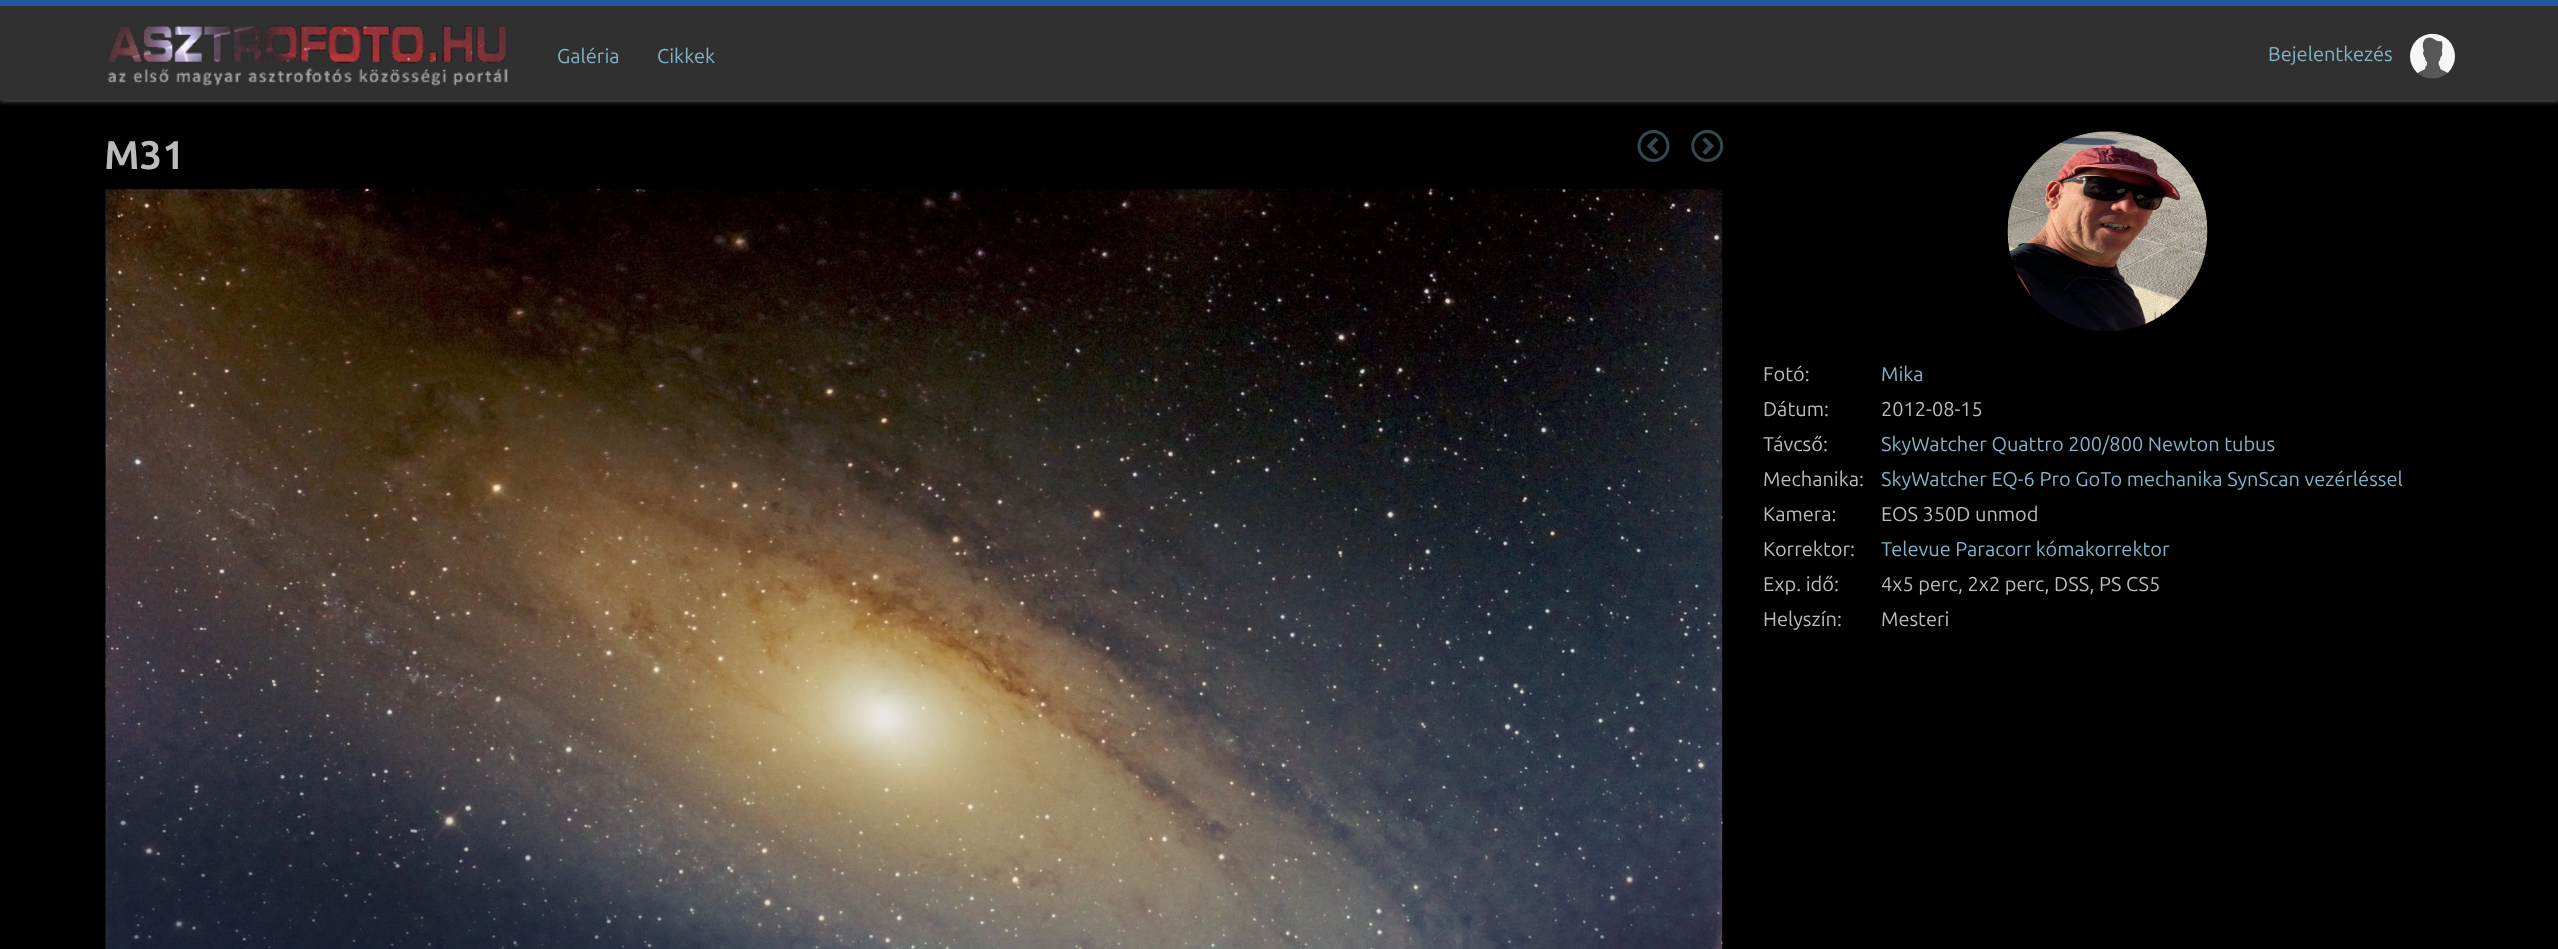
<!DOCTYPE html>
<meta charset="utf-8">
<style>body { margin: 0 } canvas { display: block }</style>
<canvas id="canvas" width="2558" height="949"></canvas>
<script type="module">
  const canvas = document.getElementById("canvas");
  const g = canvas.getContext("2d");
  g.miterLimit = 4;
  g.fontKerning = "normal";
  function drawText(s, x, y, [font, color]) {
    g.font = font;
    g.fillStyle = color;
    g.fillText(s, x, y);
  }
  function fillBox(x, y, w, h, color) {
    g.fillStyle = color;
    g.fillRect(x, y, w, h);
  }
  async function drawPicture(src, x, y, w, h) {
    const img = new Image();
    img.src = src;
    await img.decode();
    g.drawImage(img, x, y, w, h);
  }

  const s1 = ["20px Ubuntu", "#80B3C7"];
  const s2 = ["bold 40px Ubuntu", "#BBBBBB"];
  const s3 = ["20px Ubuntu", "#BBBBBB"];

  fillBox(0, 0, 2558, 949, "#000000");
  g.fillStyle = "#888888";
  g.filter = "blur(3px)";
  g.beginPath();
  g.rect(0, 0, 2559, 100);
  g.fill();
  g.filter = "none";
  fillBox(0, 6, 2558, 94, "#303030");
  fillBox(0, 0, 2558, 6, "#24569F");
  await drawPicture("pic1.png", 107, 25, 401, 62);
  drawText("Galéria", 557, 63, s1);
  drawText("Cikkek", 657, 63, s1);
  drawText("Bejelentkezés", 2268, 61, s1);
  await drawPicture("pic2.png", 2410, 33, 45, 46);
  drawText("M31", 104, 169, s2);
  await drawPicture("pic3.png", 1637, 130, 33, 32);
  await drawPicture("pic4.png", 1691, 130, 33, 32);
  await drawPicture("pic5.png", 105, 188, 1618, 761);
  await drawPicture("pic6.png", 2007, 131, 201, 200);
  drawText("Fotó:", 1763, 381, s3);
  drawText("Mika", 1881, 381, s1);
  drawText("Dátum:", 1763, 416, s3);
  drawText("2012-08-15", 1881, 416, s3);
  drawText("Távcső:", 1763, 451, s3);
  drawText("SkyWatcher Quattro 200/800 Newton tubus", 1881, 451, s1);
  drawText("Mechanika:", 1763, 486, s3);
  drawText("SkyWatcher EQ-6 Pro GoTo mechanika SynScan vezérléssel", 1881, 486, s1);
  drawText("Kamera:", 1763, 521, s3);
  drawText("EOS 350D unmod", 1881, 521, s3);
  drawText("Korrektor:", 1763, 556, s3);
  drawText("Televue Paracorr kómakorrektor", 1881, 556, s1);
  drawText("Exp. idő:", 1763, 591, s3);
  drawText("4x5 perc, 2x2 perc, DSS, PS CS5", 1881, 591, s3);
  drawText("Helyszín:", 1763, 626, s3);
  drawText("Mesteri", 1881, 626, s3);
</script>
